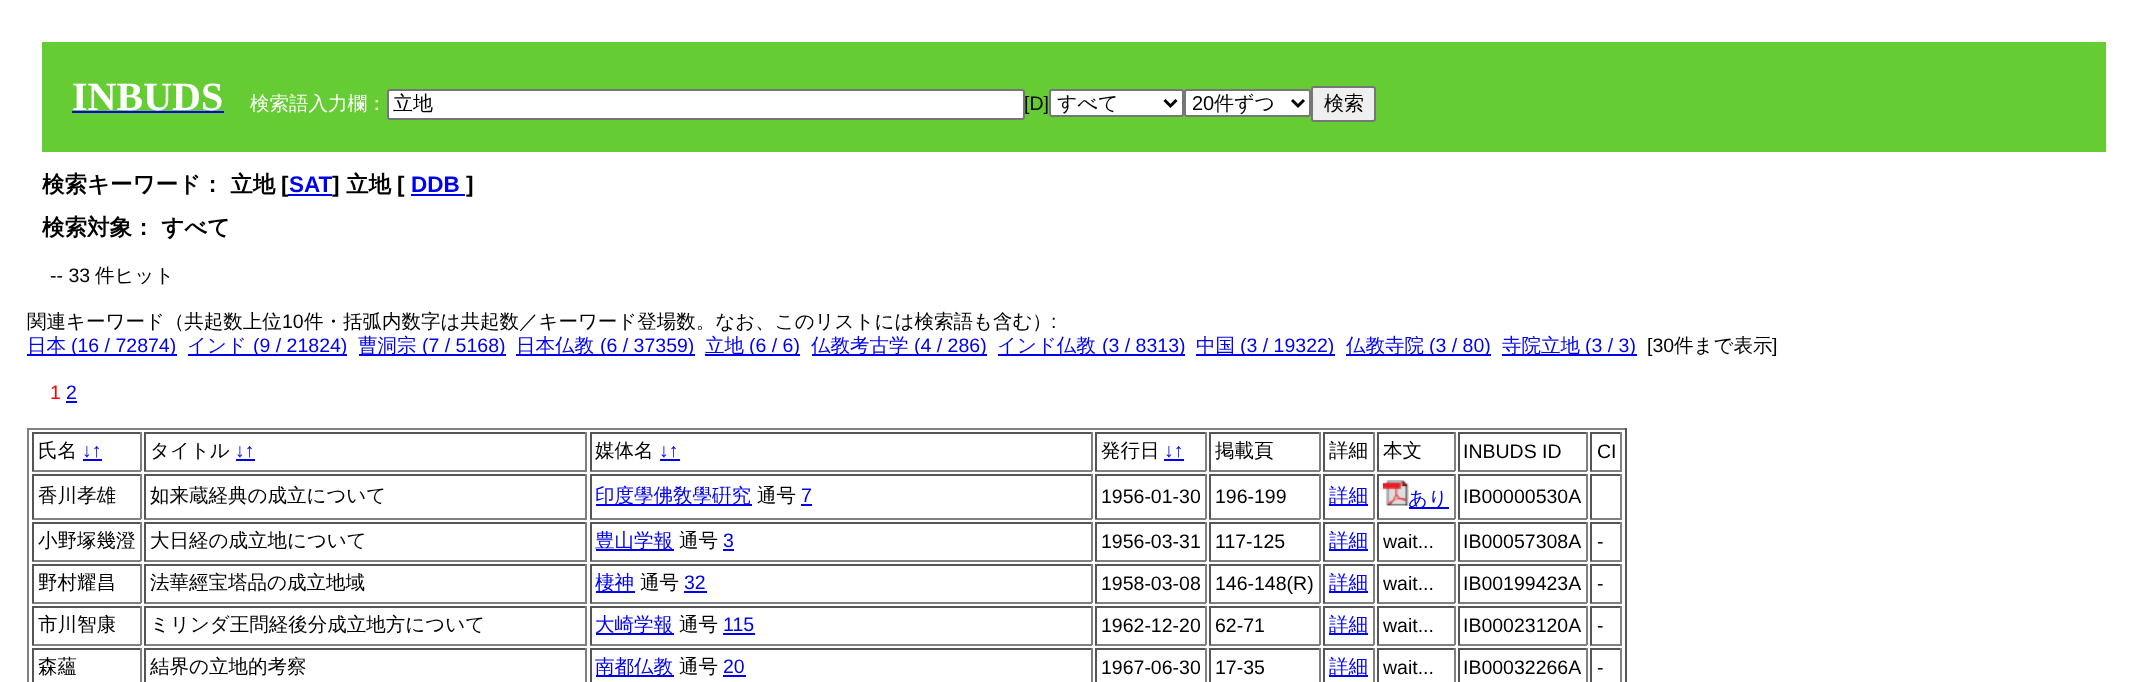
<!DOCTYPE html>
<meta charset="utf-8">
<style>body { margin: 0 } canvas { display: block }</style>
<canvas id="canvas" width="2147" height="682"></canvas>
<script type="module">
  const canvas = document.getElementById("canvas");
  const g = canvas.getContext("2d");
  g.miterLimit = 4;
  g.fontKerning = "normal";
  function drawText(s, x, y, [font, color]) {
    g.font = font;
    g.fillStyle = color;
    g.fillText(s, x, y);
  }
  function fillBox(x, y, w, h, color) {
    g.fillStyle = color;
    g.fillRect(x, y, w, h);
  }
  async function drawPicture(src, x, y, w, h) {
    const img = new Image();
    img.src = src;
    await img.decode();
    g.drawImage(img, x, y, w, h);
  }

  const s1 = ["bold 40px Liberation Serif", "#FFFFFF"];
  const s2 = ["500 19.5px WenQuanYi Zen Hei", "#FFFFFF"];
  const s3 = ["500 20px WenQuanYi Zen Hei", "#000000"];
  const s4 = ["19.5px Liberation Sans", "#000000"];
  const s5 = ["20px Liberation Sans", "#000000"];
  const s6 = ["bold 22.5px WenQuanYi Zen Hei", "#000000"];
  const s7 = ["bold 22.5px Liberation Sans", "#000000"];
  const s8 = ["bold 22.5px Liberation Sans", "#0000EE"];
  const s9 = ["500 19.5px WenQuanYi Zen Hei", "#000000"];
  const s10 = ["500 19.5px WenQuanYi Zen Hei", "#0000EE"];
  const s11 = ["19.5px Liberation Sans", "#0000EE"];
  const s12 = ["19.5px Liberation Sans", "#FF0000"];

  fillBox(0, 0, 2147, 682, "#FFFFFF");
  fillBox(42, 42, 2064, 110, "#66CC33");
  drawText("INBUDS", 72, 110, s1);
  fillBox(72, 111, 152, 2, "#0000EE");
  drawText("検索語入力欄：", 250, 110, s2);
  g.beginPath();
  g.roundRect(388, 90, 636, 29, 2);
  g.fill();
  g.strokeStyle = "#767676";
  g.lineWidth = 2;
  g.stroke();
  drawText("立地", 393, 110, s3);
  drawText("[D]", 1024, 110, s4);
  g.fillStyle = "#FFFFFF";
  g.beginPath();
  g.roundRect(1050, 90, 133, 26, 2);
  g.fill();
  g.stroke();
  g.beginPath();
  g.moveTo(1164.5, 100);
  g.lineTo(1170.5, 106);
  g.lineTo(1176.5, 100);
  g.strokeStyle = "#000000";
  g.lineWidth = 3;
  g.stroke();
  drawText("すべて", 1057, 110, s3);
  g.fillStyle = "#FFFFFF";
  g.beginPath();
  g.roundRect(1185, 90, 125, 26, 2);
  g.fill();
  g.strokeStyle = "#767676";
  g.lineWidth = 2;
  g.stroke();
  g.beginPath();
  g.moveTo(1292, 100);
  g.lineTo(1298, 106);
  g.lineTo(1304, 100);
  g.strokeStyle = "#000000";
  g.lineWidth = 3;
  g.stroke();
  drawText("20", 1192, 110, s5);
  drawText("件ずつ", 1214, 110, s3);
  g.fillStyle = "#EFEFEF";
  g.beginPath();
  g.roundRect(1312, 87, 63, 34, 2);
  g.fill();
  g.strokeStyle = "#767676";
  g.lineWidth = 2;
  g.stroke();
  drawText("検索", 1324, 110, s3);
  drawText("検索キーワード： 立地", 42, 192, s6);
  drawText("[", 281, 192, s7);
  drawText("SAT", 289, 192, s8);
  fillBox(288, 194, 44, 2, "#0000EE");
  drawText("]", 332, 192, s7);
  drawText("立地", 346, 192, s6);
  drawText("[", 397, 192, s7);
  drawText("DDB", 411, 192, s8);
  fillBox(411, 194, 54, 2, "#0000EE");
  drawText("]", 466, 192, s7);
  drawText("検索対象： すべて", 42, 235, s6);
  drawText("-- 33", 50, 282, s4);
  drawText("件ヒット", 95, 282, s9);
  drawText("関連キーワード（共起数上位", 27, 328, s9);
  drawText("10", 282, 328, s4);
  drawText("件・括弧内数字は共起数／キーワード登場数。なお、このリストには検索語も含む）", 304, 328, s9);
  drawText(":", 1051, 328, s4);
  fillBox(27, 354, 150, 2, "#0000EE");
  drawText("日本", 27, 352, s10);
  drawText("(16 / 72874)", 71, 352, s11);
  fillBox(188, 354, 159, 2, "#0000EE");
  drawText("インド", 187, 352, s10);
  drawText("(9 / 21824)", 253, 352, s11);
  fillBox(359, 354, 147, 2, "#0000EE");
  drawText("曹洞宗", 358, 352, s10);
  drawText("(7 / 5168)", 422, 352, s11);
  fillBox(516, 354, 179, 2, "#0000EE");
  drawText("日本仏教", 516, 352, s10);
  drawText("(6 / 37359)", 600, 352, s11);
  fillBox(705, 354, 95, 2, "#0000EE");
  drawText("立地", 705, 352, s10);
  drawText("(6 / 6)", 749, 352, s11);
  fillBox(812, 354, 175, 2, "#0000EE");
  drawText("仏教考古学", 811, 352, s10);
  drawText("(4 / 286)", 914, 352, s11);
  fillBox(998, 354, 187, 2, "#0000EE");
  drawText("インド仏教", 997, 352, s10);
  drawText("(3 / 8313)", 1102, 352, s11);
  fillBox(1196, 354, 139, 2, "#0000EE");
  drawText("中国", 1196, 352, s10);
  drawText("(3 / 19322)", 1240, 352, s11);
  fillBox(1346, 354, 145, 2, "#0000EE");
  drawText("仏教寺院", 1346, 352, s10);
  drawText("(3 / 80)", 1429, 352, s11);
  fillBox(1502, 354, 135, 2, "#0000EE");
  drawText("寺院立地", 1502, 352, s10);
  drawText("(3 / 3)", 1585, 352, s11);
  drawText("[30", 1647, 352, s4);
  drawText("件まで表示", 1674, 352, s9);
  drawText("]", 1772, 352, s4);
  drawText("1", 50, 399, s12);
  drawText("2", 66, 399, s11);
  fillBox(66, 401, 11, 2, "#0000EE");
  fillBox(27, 428, 1599, 2, "#808080");
  fillBox(1625, 428, 2, 254, "#555555");
  fillBox(27, 428, 2, 254, "#808080");
  fillBox(32, 432, 109, 2, "#555555");
  fillBox(140, 432, 2, 39, "#808080");
  fillBox(32, 470, 109, 2, "#808080");
  fillBox(32, 432, 2, 39, "#555555");
  drawText("氏名", 38, 457, s9);
  drawText("↓↑", 82, 457, s11);
  fillBox(83, 459, 19, 2, "#0000EE");
  fillBox(144, 432, 443, 2, "#555555");
  fillBox(585, 432, 2, 39, "#808080");
  fillBox(144, 470, 443, 2, "#808080");
  fillBox(144, 432, 2, 39, "#555555");
  drawText("タイトル", 150, 457, s9);
  drawText("↓↑", 235, 457, s11);
  fillBox(236, 459, 19, 2, "#0000EE");
  fillBox(590, 432, 502, 2, "#555555");
  fillBox(1091, 432, 2, 39, "#808080");
  fillBox(590, 470, 502, 2, "#808080");
  fillBox(590, 432, 2, 39, "#555555");
  drawText("媒体名", 595, 457, s9);
  drawText("↓↑", 659, 457, s11);
  fillBox(660, 459, 20, 2, "#0000EE");
  fillBox(1095, 432, 111, 2, "#555555");
  fillBox(1205, 432, 2, 39, "#808080");
  fillBox(1095, 470, 111, 2, "#808080");
  fillBox(1095, 432, 2, 39, "#555555");
  drawText("発行日", 1101, 457, s9);
  drawText("↓↑", 1164, 457, s11);
  fillBox(1164, 459, 20, 2, "#0000EE");
  fillBox(1209, 432, 111, 2, "#555555");
  fillBox(1319, 432, 2, 39, "#808080");
  fillBox(1209, 470, 111, 2, "#808080");
  fillBox(1209, 432, 2, 39, "#555555");
  drawText("掲載頁", 1215, 457, s9);
  fillBox(1323, 432, 51, 2, "#555555");
  fillBox(1373, 432, 2, 39, "#808080");
  fillBox(1323, 470, 51, 2, "#808080");
  fillBox(1323, 432, 2, 39, "#555555");
  drawText("詳細", 1329, 457, s9);
  fillBox(1377, 432, 78, 2, "#555555");
  fillBox(1454, 432, 2, 39, "#808080");
  fillBox(1377, 470, 78, 2, "#808080");
  fillBox(1377, 432, 2, 39, "#555555");
  drawText("本文", 1383, 457, s9);
  fillBox(1458, 432, 129, 2, "#555555");
  fillBox(1586, 432, 2, 39, "#808080");
  fillBox(1458, 470, 129, 2, "#808080");
  fillBox(1458, 432, 2, 39, "#555555");
  drawText("INBUDS ID", 1463, 458, s4);
  fillBox(1590, 432, 32, 2, "#555555");
  fillBox(1620, 432, 2, 39, "#808080");
  fillBox(1590, 470, 32, 2, "#808080");
  fillBox(1590, 432, 2, 39, "#555555");
  drawText("CI", 1597, 458, s4);
  fillBox(32, 474, 109, 2, "#555555");
  fillBox(140, 474, 2, 45, "#808080");
  fillBox(32, 518, 109, 2, "#808080");
  fillBox(32, 474, 2, 45, "#555555");
  drawText("香川孝雄", 38, 502, s9);
  fillBox(144, 474, 443, 2, "#555555");
  fillBox(585, 474, 2, 45, "#808080");
  fillBox(144, 518, 443, 2, "#808080");
  fillBox(144, 474, 2, 45, "#555555");
  drawText("如来蔵経典の成立について", 150, 502, s9);
  fillBox(590, 474, 502, 2, "#555555");
  fillBox(1091, 474, 2, 45, "#808080");
  fillBox(590, 518, 502, 2, "#808080");
  fillBox(590, 474, 2, 45, "#555555");
  fillBox(596, 504, 156, 2, "#0000EE");
  drawText("印度學佛敎學硏究", 595, 502, s10);
  drawText("通号", 757, 502, s9);
  drawText("7", 801, 502, s11);
  fillBox(801, 504, 11, 2, "#0000EE");
  fillBox(1095, 474, 111, 2, "#555555");
  fillBox(1205, 474, 2, 45, "#808080");
  fillBox(1095, 518, 111, 2, "#808080");
  fillBox(1095, 474, 2, 45, "#555555");
  drawText("1956-01-30", 1101, 503, s4);
  fillBox(1209, 474, 111, 2, "#555555");
  fillBox(1319, 474, 2, 45, "#808080");
  fillBox(1209, 518, 111, 2, "#808080");
  fillBox(1209, 474, 2, 45, "#555555");
  drawText("196-199", 1215, 503, s4);
  fillBox(1323, 474, 51, 2, "#555555");
  fillBox(1373, 474, 2, 45, "#808080");
  fillBox(1323, 518, 51, 2, "#808080");
  fillBox(1323, 474, 2, 45, "#555555");
  fillBox(1329, 504, 39, 2, "#0000EE");
  drawText("詳細", 1329, 502, s10);
  fillBox(1377, 474, 78, 2, "#555555");
  fillBox(1454, 474, 2, 45, "#808080");
  fillBox(1377, 518, 78, 2, "#808080");
  fillBox(1377, 474, 2, 45, "#555555");
  await drawPicture("pic1.png", 1383, 480, 26, 26);
  fillBox(1409, 507, 40, 2, "#0000EE");
  drawText("あり", 1408, 505, s10);
  fillBox(1458, 474, 129, 2, "#555555");
  fillBox(1586, 474, 2, 45, "#808080");
  fillBox(1458, 518, 129, 2, "#808080");
  fillBox(1458, 474, 2, 45, "#555555");
  drawText("IB00000530A", 1463, 503, s4);
  fillBox(1590, 474, 32, 2, "#555555");
  fillBox(1620, 474, 2, 45, "#808080");
  fillBox(1590, 518, 32, 2, "#808080");
  fillBox(1590, 474, 2, 45, "#555555");
  fillBox(32, 522, 109, 2, "#555555");
  fillBox(140, 522, 2, 39, "#808080");
  fillBox(32, 560, 109, 2, "#808080");
  fillBox(32, 522, 2, 39, "#555555");
  drawText("小野塚幾澄", 38, 547, s9);
  fillBox(144, 522, 443, 2, "#555555");
  fillBox(585, 522, 2, 39, "#808080");
  fillBox(144, 560, 443, 2, "#808080");
  fillBox(144, 522, 2, 39, "#555555");
  drawText("大日経の成立地について", 150, 547, s9);
  fillBox(590, 522, 502, 2, "#555555");
  fillBox(1091, 522, 2, 39, "#808080");
  fillBox(590, 560, 502, 2, "#808080");
  fillBox(590, 522, 2, 39, "#555555");
  fillBox(596, 549, 78, 2, "#0000EE");
  drawText("豊山学報", 595, 547, s10);
  drawText("通号", 679, 547, s9);
  drawText("3", 723, 547, s11);
  fillBox(723, 549, 11, 2, "#0000EE");
  fillBox(1095, 522, 111, 2, "#555555");
  fillBox(1205, 522, 2, 39, "#808080");
  fillBox(1095, 560, 111, 2, "#808080");
  fillBox(1095, 522, 2, 39, "#555555");
  drawText("1956-03-31", 1101, 548, s4);
  fillBox(1209, 522, 111, 2, "#555555");
  fillBox(1319, 522, 2, 39, "#808080");
  fillBox(1209, 560, 111, 2, "#808080");
  fillBox(1209, 522, 2, 39, "#555555");
  drawText("117-125", 1215, 548, s4);
  fillBox(1323, 522, 51, 2, "#555555");
  fillBox(1373, 522, 2, 39, "#808080");
  fillBox(1323, 560, 51, 2, "#808080");
  fillBox(1323, 522, 2, 39, "#555555");
  fillBox(1329, 549, 39, 2, "#0000EE");
  drawText("詳細", 1329, 547, s10);
  fillBox(1377, 522, 78, 2, "#555555");
  fillBox(1454, 522, 2, 39, "#808080");
  fillBox(1377, 560, 78, 2, "#808080");
  fillBox(1377, 522, 2, 39, "#555555");
  drawText("wait...", 1383, 548, s4);
  fillBox(1458, 522, 129, 2, "#555555");
  fillBox(1586, 522, 2, 39, "#808080");
  fillBox(1458, 560, 129, 2, "#808080");
  fillBox(1458, 522, 2, 39, "#555555");
  drawText("IB00057308A", 1463, 548, s4);
  fillBox(1590, 522, 32, 2, "#555555");
  fillBox(1620, 522, 2, 39, "#808080");
  fillBox(1590, 560, 32, 2, "#808080");
  fillBox(1590, 522, 2, 39, "#555555");
  drawText("-", 1597, 548, s4);
  fillBox(32, 564, 109, 2, "#555555");
  fillBox(140, 564, 2, 39, "#808080");
  fillBox(32, 602, 109, 2, "#808080");
  fillBox(32, 564, 2, 39, "#555555");
  drawText("野村耀昌", 38, 589, s9);
  fillBox(144, 564, 443, 2, "#555555");
  fillBox(585, 564, 2, 39, "#808080");
  fillBox(144, 602, 443, 2, "#808080");
  fillBox(144, 564, 2, 39, "#555555");
  drawText("法華經宝塔品の成立地域", 150, 589, s9);
  fillBox(590, 564, 502, 2, "#555555");
  fillBox(1091, 564, 2, 39, "#808080");
  fillBox(590, 602, 502, 2, "#808080");
  fillBox(590, 564, 2, 39, "#555555");
  fillBox(596, 591, 39, 2, "#0000EE");
  drawText("棲神", 595, 589, s10);
  drawText("通号", 640, 589, s9);
  drawText("32", 684, 589, s11);
  fillBox(684, 591, 23, 2, "#0000EE");
  fillBox(1095, 564, 111, 2, "#555555");
  fillBox(1205, 564, 2, 39, "#808080");
  fillBox(1095, 602, 111, 2, "#808080");
  fillBox(1095, 564, 2, 39, "#555555");
  drawText("1958-03-08", 1101, 590, s4);
  fillBox(1209, 564, 111, 2, "#555555");
  fillBox(1319, 564, 2, 39, "#808080");
  fillBox(1209, 602, 111, 2, "#808080");
  fillBox(1209, 564, 2, 39, "#555555");
  drawText("146-148(R)", 1215, 590, s4);
  fillBox(1323, 564, 51, 2, "#555555");
  fillBox(1373, 564, 2, 39, "#808080");
  fillBox(1323, 602, 51, 2, "#808080");
  fillBox(1323, 564, 2, 39, "#555555");
  fillBox(1329, 591, 39, 2, "#0000EE");
  drawText("詳細", 1329, 589, s10);
  fillBox(1377, 564, 78, 2, "#555555");
  fillBox(1454, 564, 2, 39, "#808080");
  fillBox(1377, 602, 78, 2, "#808080");
  fillBox(1377, 564, 2, 39, "#555555");
  drawText("wait...", 1383, 590, s4);
  fillBox(1458, 564, 129, 2, "#555555");
  fillBox(1586, 564, 2, 39, "#808080");
  fillBox(1458, 602, 129, 2, "#808080");
  fillBox(1458, 564, 2, 39, "#555555");
  drawText("IB00199423A", 1463, 590, s4);
  fillBox(1590, 564, 32, 2, "#555555");
  fillBox(1620, 564, 2, 39, "#808080");
  fillBox(1590, 602, 32, 2, "#808080");
  fillBox(1590, 564, 2, 39, "#555555");
  drawText("-", 1597, 590, s4);
  fillBox(32, 606, 109, 2, "#555555");
  fillBox(140, 606, 2, 39, "#808080");
  fillBox(32, 644, 109, 2, "#808080");
  fillBox(32, 606, 2, 39, "#555555");
  drawText("市川智康", 38, 631, s9);
  fillBox(144, 606, 443, 2, "#555555");
  fillBox(585, 606, 2, 39, "#808080");
  fillBox(144, 644, 443, 2, "#808080");
  fillBox(144, 606, 2, 39, "#555555");
  drawText("ミリンダ王問経後分成立地方について", 150, 631, s9);
  fillBox(590, 606, 502, 2, "#555555");
  fillBox(1091, 606, 2, 39, "#808080");
  fillBox(590, 644, 502, 2, "#808080");
  fillBox(590, 606, 2, 39, "#555555");
  fillBox(596, 633, 78, 2, "#0000EE");
  drawText("大崎学報", 595, 631, s10);
  drawText("通号", 679, 631, s9);
  drawText("115", 723, 631, s11);
  fillBox(723, 633, 32, 2, "#0000EE");
  fillBox(1095, 606, 111, 2, "#555555");
  fillBox(1205, 606, 2, 39, "#808080");
  fillBox(1095, 644, 111, 2, "#808080");
  fillBox(1095, 606, 2, 39, "#555555");
  drawText("1962-12-20", 1101, 632, s4);
  fillBox(1209, 606, 111, 2, "#555555");
  fillBox(1319, 606, 2, 39, "#808080");
  fillBox(1209, 644, 111, 2, "#808080");
  fillBox(1209, 606, 2, 39, "#555555");
  drawText("62-71", 1215, 632, s4);
  fillBox(1323, 606, 51, 2, "#555555");
  fillBox(1373, 606, 2, 39, "#808080");
  fillBox(1323, 644, 51, 2, "#808080");
  fillBox(1323, 606, 2, 39, "#555555");
  fillBox(1329, 633, 39, 2, "#0000EE");
  drawText("詳細", 1329, 631, s10);
  fillBox(1377, 606, 78, 2, "#555555");
  fillBox(1454, 606, 2, 39, "#808080");
  fillBox(1377, 644, 78, 2, "#808080");
  fillBox(1377, 606, 2, 39, "#555555");
  drawText("wait...", 1383, 632, s4);
  fillBox(1458, 606, 129, 2, "#555555");
  fillBox(1586, 606, 2, 39, "#808080");
  fillBox(1458, 644, 129, 2, "#808080");
  fillBox(1458, 606, 2, 39, "#555555");
  drawText("IB00023120A", 1463, 632, s4);
  fillBox(1590, 606, 32, 2, "#555555");
  fillBox(1620, 606, 2, 39, "#808080");
  fillBox(1590, 644, 32, 2, "#808080");
  fillBox(1590, 606, 2, 39, "#555555");
  drawText("-", 1597, 632, s4);
  fillBox(32, 648, 109, 2, "#555555");
  fillBox(140, 648, 2, 34, "#808080");
  fillBox(32, 648, 2, 34, "#555555");
  drawText("森蘊", 38, 673, s9);
  fillBox(144, 648, 443, 2, "#555555");
  fillBox(585, 648, 2, 34, "#808080");
  fillBox(144, 648, 2, 34, "#555555");
  drawText("結界の立地的考察", 150, 673, s9);
  fillBox(590, 648, 502, 2, "#555555");
  fillBox(1091, 648, 2, 34, "#808080");
  fillBox(590, 648, 2, 34, "#555555");
  fillBox(596, 675, 78, 2, "#0000EE");
  drawText("南都仏教", 595, 673, s10);
  drawText("通号", 679, 673, s9);
  drawText("20", 723, 673, s11);
  fillBox(723, 675, 23, 2, "#0000EE");
  fillBox(1095, 648, 111, 2, "#555555");
  fillBox(1205, 648, 2, 34, "#808080");
  fillBox(1095, 648, 2, 34, "#555555");
  drawText("1967-06-30", 1101, 674, s4);
  fillBox(1209, 648, 111, 2, "#555555");
  fillBox(1319, 648, 2, 34, "#808080");
  fillBox(1209, 648, 2, 34, "#555555");
  drawText("17-35", 1215, 674, s4);
  fillBox(1323, 648, 51, 2, "#555555");
  fillBox(1373, 648, 2, 34, "#808080");
  fillBox(1323, 648, 2, 34, "#555555");
  fillBox(1329, 675, 39, 2, "#0000EE");
  drawText("詳細", 1329, 673, s10);
  fillBox(1377, 648, 78, 2, "#555555");
  fillBox(1454, 648, 2, 34, "#808080");
  fillBox(1377, 648, 2, 34, "#555555");
  drawText("wait...", 1383, 674, s4);
  fillBox(1458, 648, 129, 2, "#555555");
  fillBox(1586, 648, 2, 34, "#808080");
  fillBox(1458, 648, 2, 34, "#555555");
  drawText("IB00032266A", 1463, 674, s4);
  fillBox(1590, 648, 32, 2, "#555555");
  fillBox(1620, 648, 2, 34, "#808080");
  fillBox(1590, 648, 2, 34, "#555555");
  drawText("-", 1597, 674, s4);
</script>
